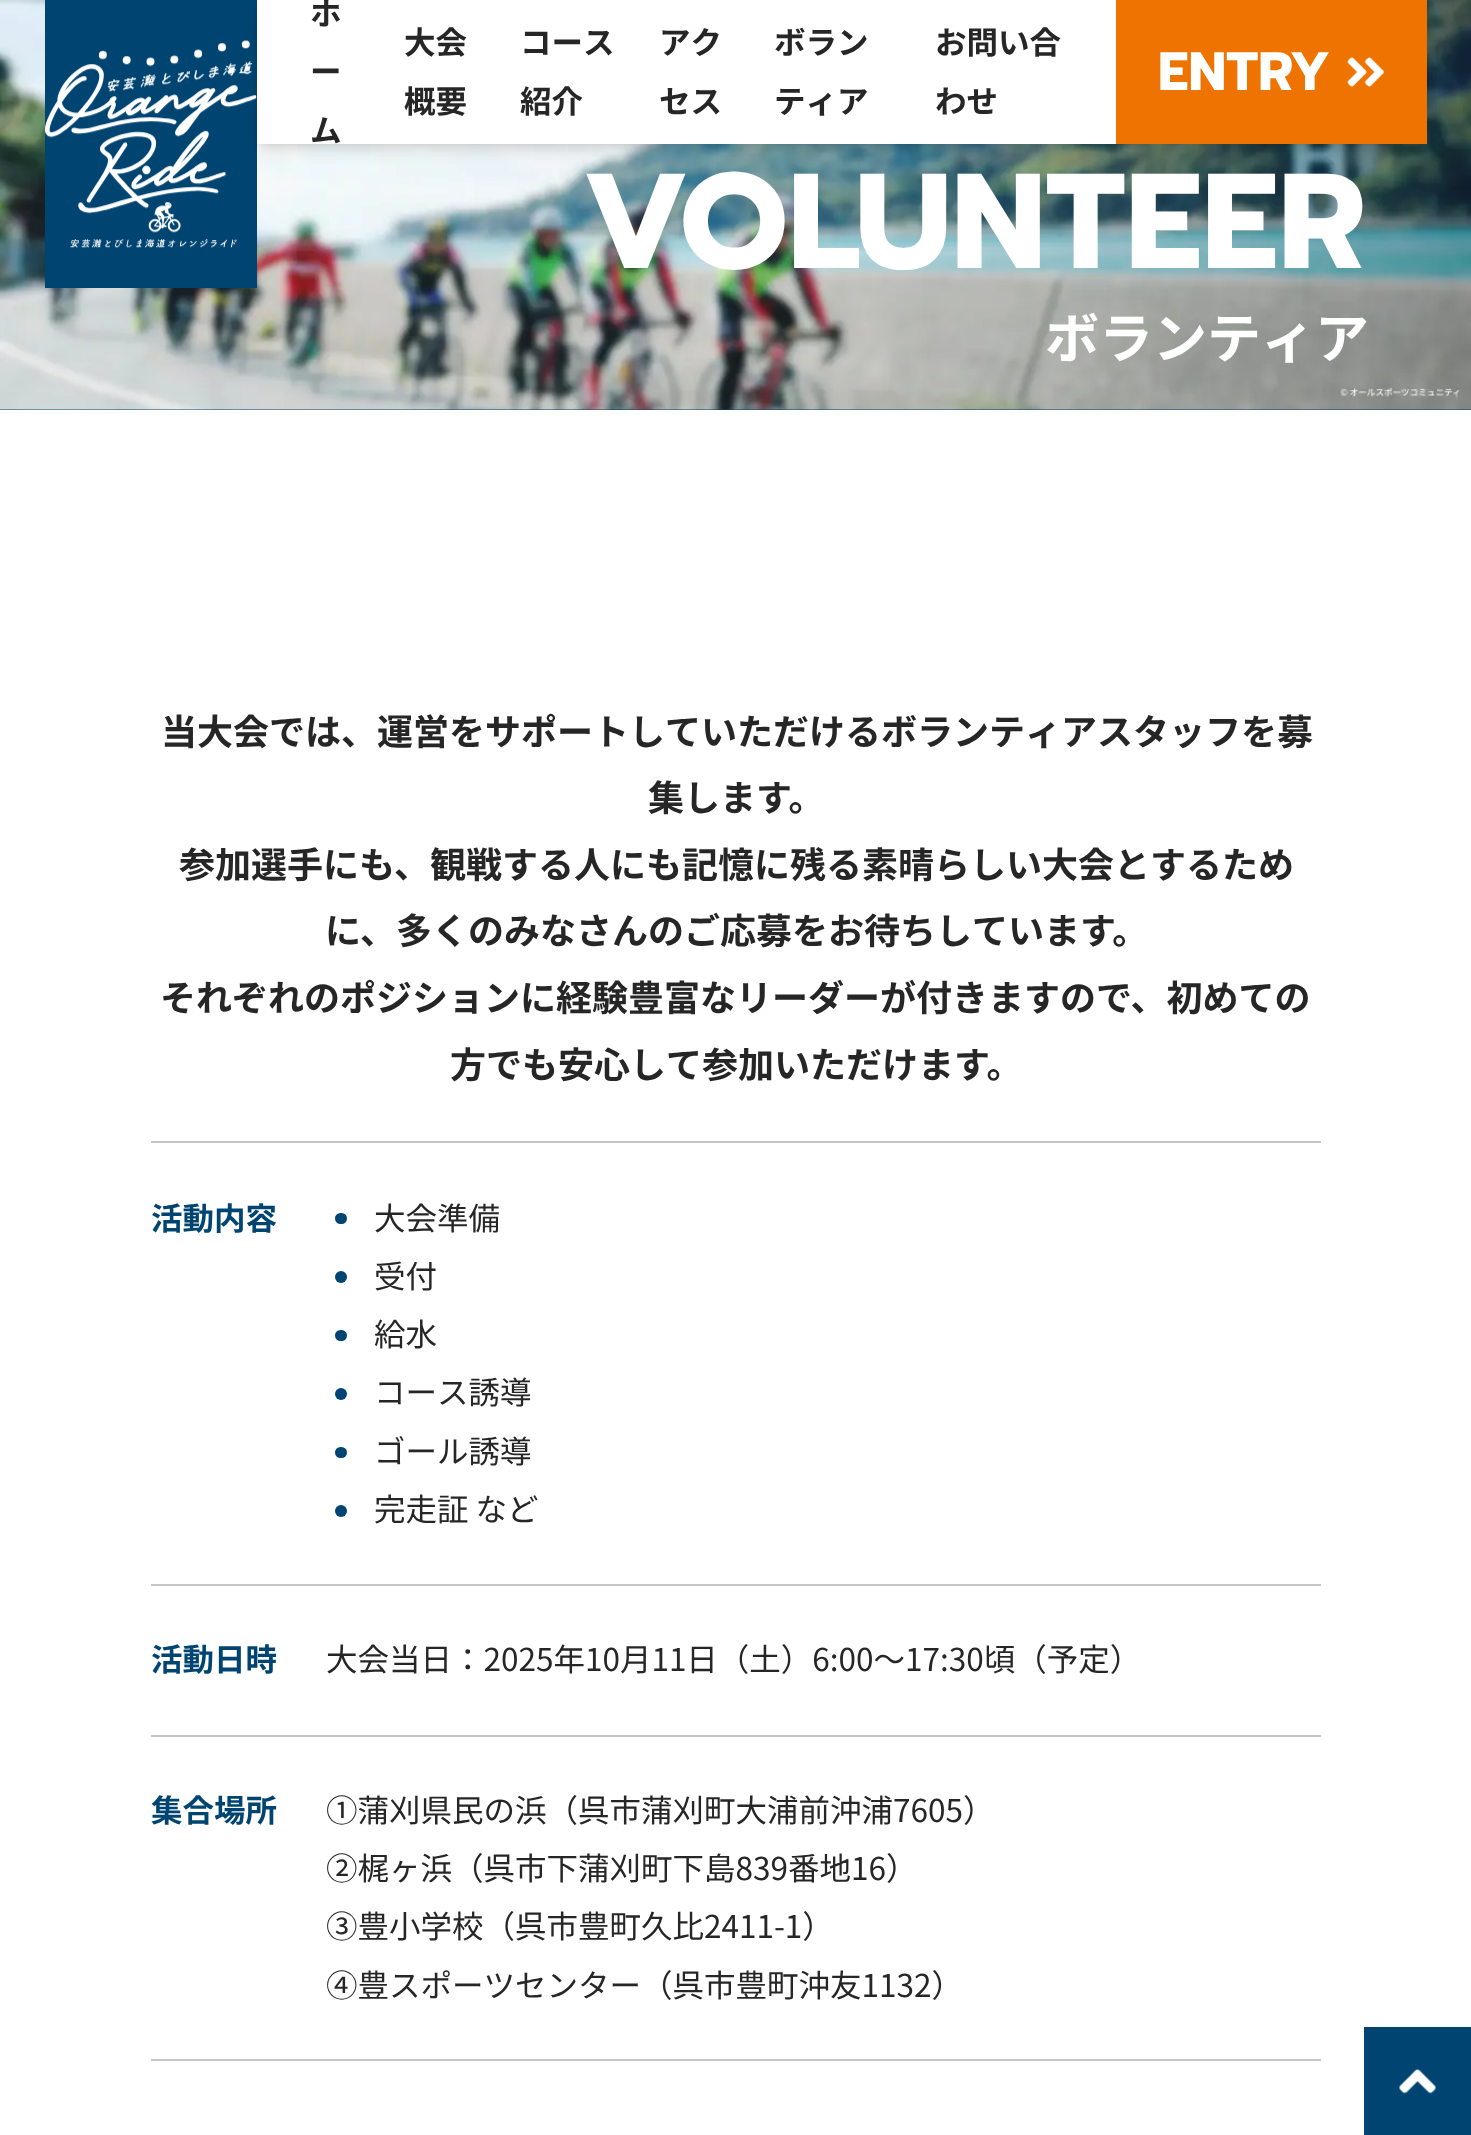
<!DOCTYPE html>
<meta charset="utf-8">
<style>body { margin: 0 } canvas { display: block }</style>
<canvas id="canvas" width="1471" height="2135"></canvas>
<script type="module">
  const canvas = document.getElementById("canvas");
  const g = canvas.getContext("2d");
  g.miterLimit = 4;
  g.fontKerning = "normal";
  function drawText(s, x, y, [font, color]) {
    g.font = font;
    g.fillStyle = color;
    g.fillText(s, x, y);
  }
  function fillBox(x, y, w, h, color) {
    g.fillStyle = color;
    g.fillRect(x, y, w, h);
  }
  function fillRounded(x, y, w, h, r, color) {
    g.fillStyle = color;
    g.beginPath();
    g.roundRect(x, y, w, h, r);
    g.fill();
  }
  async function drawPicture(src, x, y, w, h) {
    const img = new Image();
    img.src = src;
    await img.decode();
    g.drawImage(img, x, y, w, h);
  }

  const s1 = ["bold 31.5px Noto Sans JP", "#262626"];
  const s2 = ["bold 54px Prompt", "#FFFFFF"];
  const s3 = ["bold 135px Prompt", "#FFFFFF"];
  const s4 = ["bold 54px Noto Sans JP", "#FFFFFF"];
  const s5 = ["bold 36px Noto Sans JP", "#262626"];
  const s6 = ["bold 31.5px Noto Sans JP", "#004572"];
  const s7 = ["31.5px Noto Sans JP", "#262626"];

  fillBox(0, 0, 1471, 2135, "#FFFFFF");
  fillBox(0, 409, 1471, 1, "#004572");
  await drawPicture("pic3.png", 0, 0, 1471, 410);
  fillBox(45, 0, 212, 288, "#004572");
  await drawPicture("pic1.png", 45, 40, 212, 208);
  g.fillStyle = "rgba(0, 0, 0, 0.1)";
  g.filter = "blur(4.5px)";
  g.beginPath();
  g.rect(261, 9, 1161, 135);
  g.fill();
  g.filter = "none";
  g.filter = "blur(7px)";
  g.beginPath();
  g.rect(259, 11, 1165, 140);
  g.fill();
  g.filter = "none";
  fillBox(257, 0, 859, 144, "#FFFFFF");
  drawText("ホ", 310, 25, s1);
  drawText("ー", 310, 83, s1);
  drawText("ム", 310, 142, s1);
  drawText("大会", 404, 54, s1);
  drawText("概要", 404, 113, s1);
  drawText("コース", 520, 54, s1);
  drawText("紹介", 520, 113, s1);
  drawText("アク", 659, 54, s1);
  drawText("セス", 659, 113, s1);
  drawText("ボラン", 774, 54, s1);
  drawText("ティア", 774, 113, s1);
  drawText("お問い合", 935, 54, s1);
  drawText("わせ", 935, 113, s1);
  fillBox(1116, 0, 311, 144, "#EE7300");
  drawText("ENTRY", 1158, 90, s2);
  await drawPicture("pic2.png", 1347, 57, 37, 30);
  drawText("VOLUNTEER", 583, 268, s3);
  drawText("ボランティア", 1045, 358, s4);
  drawText("当大会では、運営をサポートしていただけるボランティアスタッフを募", 161, 745, s5);
  drawText("集します。", 648, 811, s5);
  drawText("参加選手にも、観戦する人にも記憶に残る素晴らしい大会とするため", 179, 878, s5);
  drawText("に、多くのみなさんのご応募をお待ちしています。", 325, 944, s5);
  drawText("それぞれのポジションに経験豊富なリーダーが付きますので、初めての", 160, 1011, s5);
  drawText("方でも安心して参加いただけます。", 450, 1078, s5);
  fillBox(151, 1141, 1170, 2, "#C6C6C6");
  fillBox(151, 1584, 1170, 2, "#C6C6C6");
  drawText("活動内容", 151, 1230, s6);
  fillRounded(335, 1213, 12, 11, 5.5, "#004572");
  drawText("大会準備", 374, 1230, s7);
  g.fillStyle = "#004572";
  g.beginPath();
  g.arc(341, 1277, 6, 0, Math.PI * 2);
  g.fill();
  drawText("受付", 374, 1288, s7);
  fillRounded(335, 1330, 12, 11, 5.5, "#004572");
  drawText("給水", 374, 1346, s7);
  g.fillStyle = "#004572";
  g.beginPath();
  g.arc(341, 1394, 6, 0, Math.PI * 2);
  g.fill();
  drawText("コース誘導", 374, 1404, s7);
  fillRounded(335, 1447, 12, 11, 5.5, "#004572");
  drawText("ゴール誘導", 374, 1463, s7);
  g.fillStyle = "#004572";
  g.beginPath();
  g.arc(341, 1511, 6, 0, Math.PI * 2);
  g.fill();
  drawText("完走証 など", 374, 1521, s7);
  fillBox(151, 1735, 1170, 2, "#C6C6C6");
  drawText("活動日時", 151, 1671, s6);
  drawText("大会当日：2025年10月11日（土）6:00〜17:30頃（予定）", 326, 1671, s7);
  fillBox(151, 2059, 1170, 2, "#C6C6C6");
  drawText("集合場所", 151, 1822, s6);
  drawText("①蒲刈県民の浜（呉市蒲刈町大浦前沖浦7605）", 326, 1822, s7);
  drawText("②梶ヶ浜（呉市下蒲刈町下島839番地16）", 326, 1880, s7);
  drawText("③豊小学校（呉市豊町久比2411-1）", 326, 1938, s7);
  drawText("④豊スポーツセンター（呉市豊町沖友1132）", 326, 1997, s7);
  fillBox(1364, 2027, 107, 108, "#004572");
  await drawPicture("pic4.png", 1399, 2069, 37, 25);
</script>
